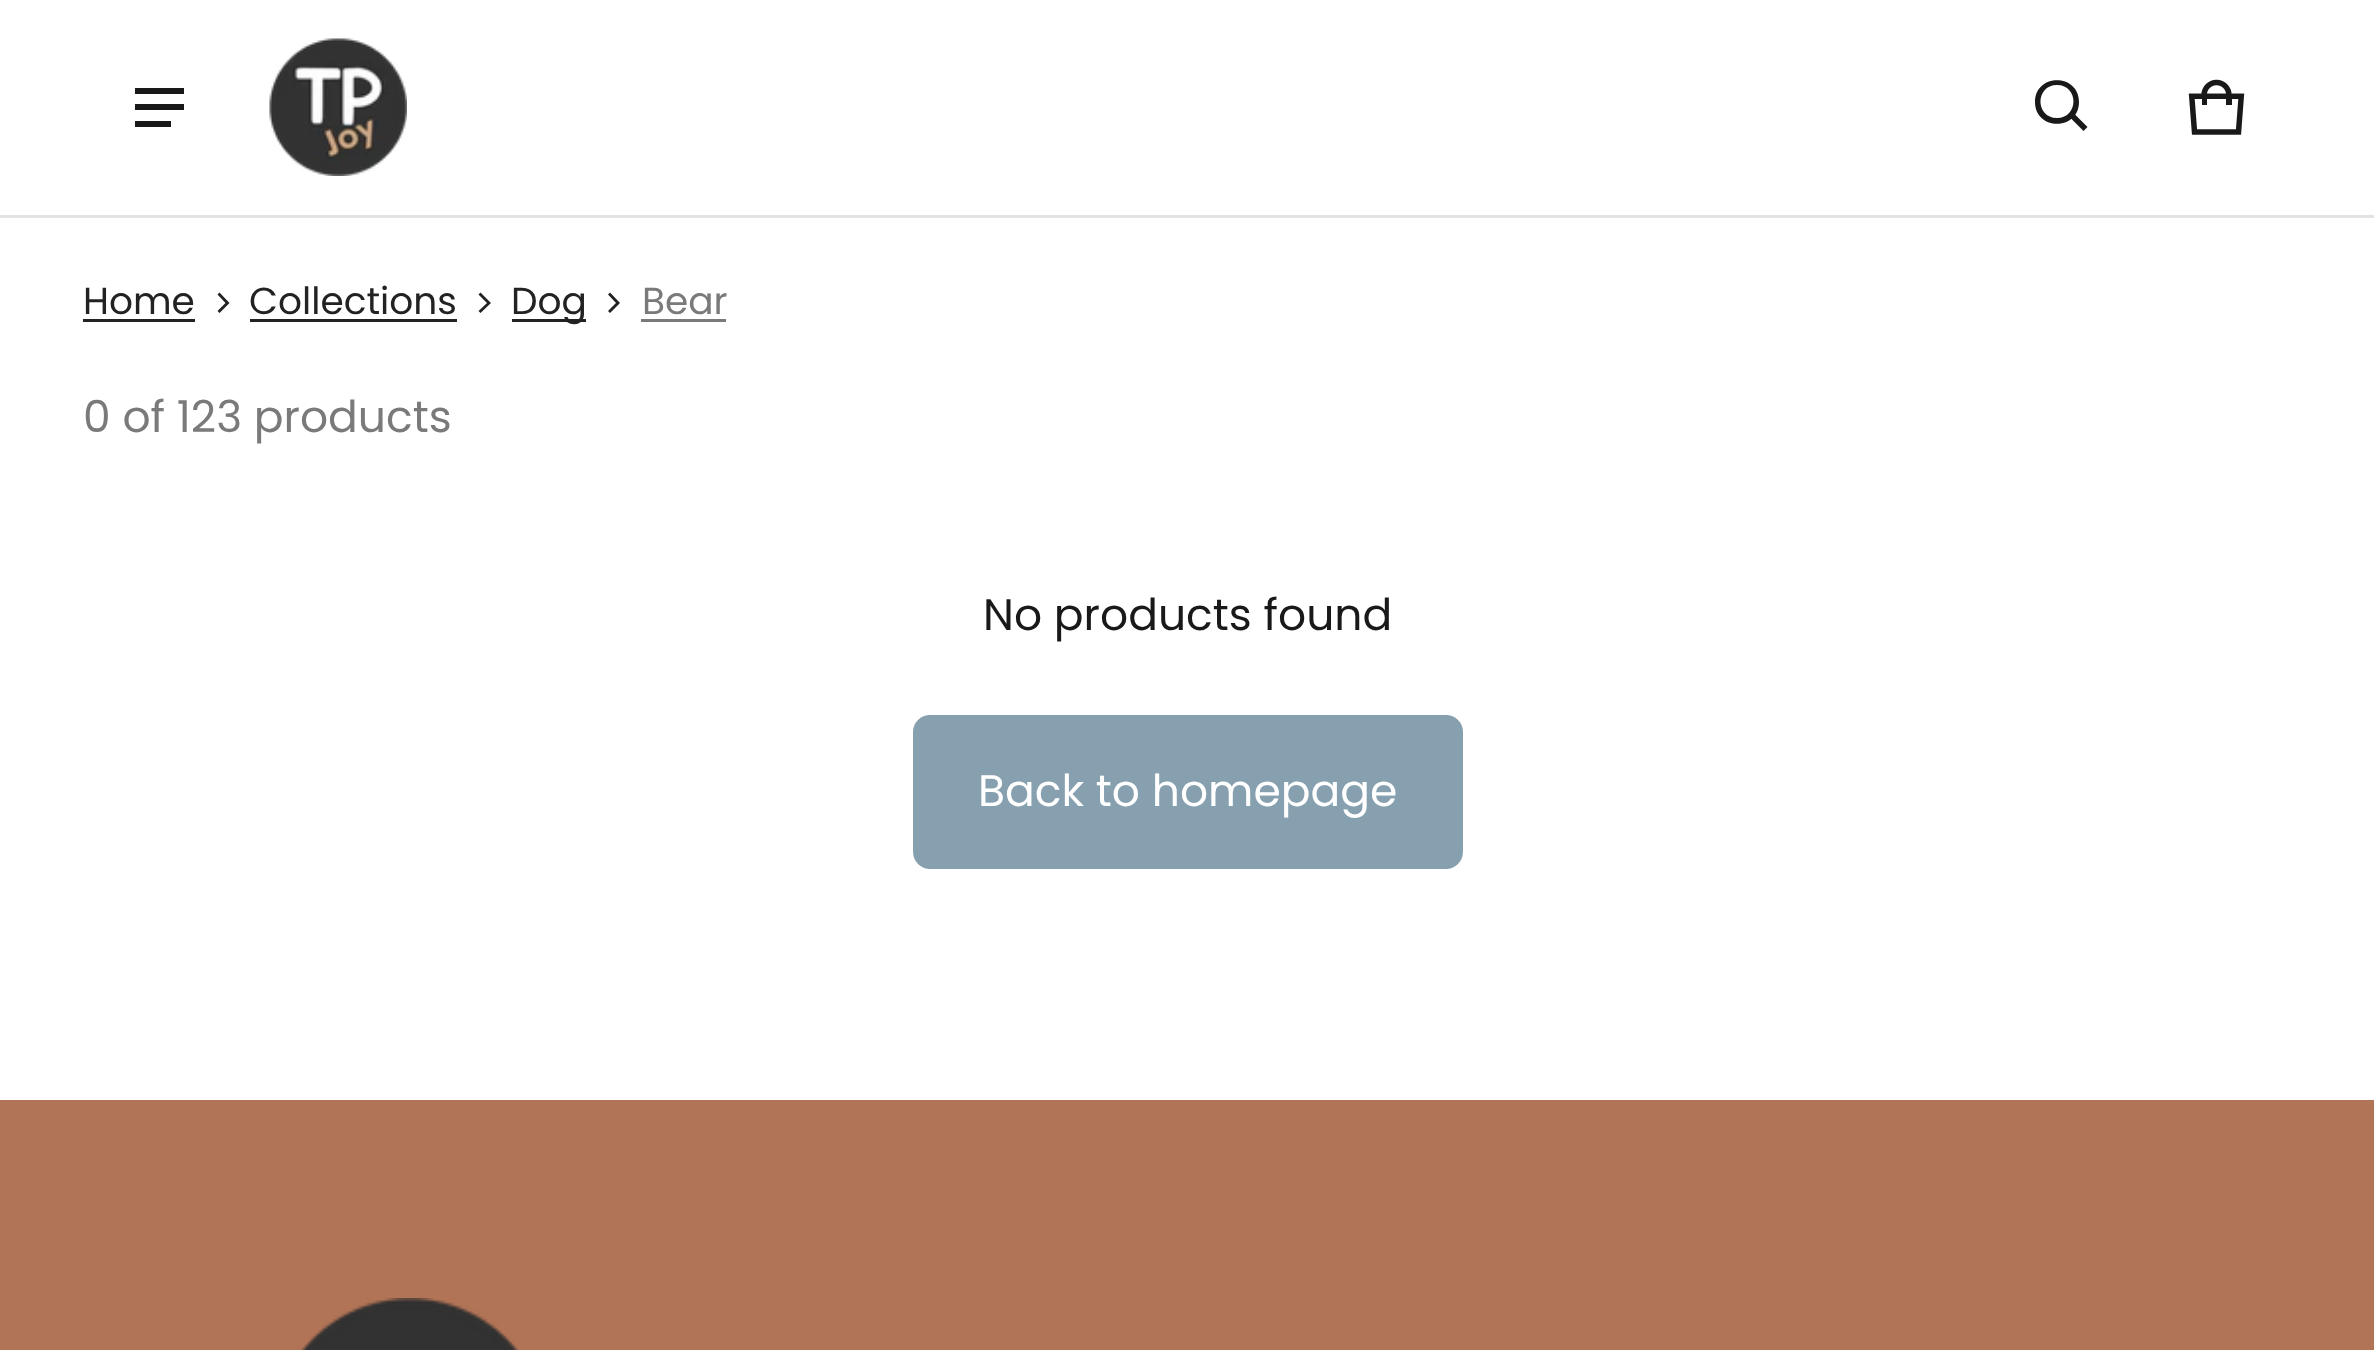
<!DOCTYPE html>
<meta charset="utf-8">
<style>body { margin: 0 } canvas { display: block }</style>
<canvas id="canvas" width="2374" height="1350"></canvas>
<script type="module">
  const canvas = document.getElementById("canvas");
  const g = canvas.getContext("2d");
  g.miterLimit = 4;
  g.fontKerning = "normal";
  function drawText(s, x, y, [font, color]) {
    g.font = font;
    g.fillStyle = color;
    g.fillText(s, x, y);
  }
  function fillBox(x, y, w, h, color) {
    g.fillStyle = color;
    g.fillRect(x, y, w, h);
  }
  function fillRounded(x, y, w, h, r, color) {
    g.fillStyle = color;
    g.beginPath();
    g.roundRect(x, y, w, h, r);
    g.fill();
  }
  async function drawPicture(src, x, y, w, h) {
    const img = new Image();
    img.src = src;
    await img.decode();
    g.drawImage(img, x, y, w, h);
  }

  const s1 = ["37.5px Poppins", "#222222"];
  const s2 = ["37.5px Poppins", "#7A7A7A"];
  const s3 = ["44px Poppins", "#7A7A7A"];
  const s4 = ["44px Poppins", "#191919"];
  const s5 = ["44px Poppins", "#FFFFFF"];

  fillBox(0, 0, 2374, 1350, "#FFFFFF");
  fillBox(0, 215, 2374, 3, "#E3E3E3");
  fillBox(135, 88, 49, 6, "#191919");
  fillBox(135, 104, 49, 6, "#191919");
  fillBox(135, 121, 36, 6, "#191919");
  await drawPicture("pic1.png", 269, 38, 138, 138);
  g.beginPath();
  g.moveTo(2057, 85);
  g.bezierCurveTo(2035, 85, 2035, 118, 2057, 118);
  g.bezierCurveTo(2079, 118, 2079, 85, 2057, 85);
  g.closePath();
  g.moveTo(2035, 102);
  g.bezierCurveTo(2035, 73, 2079, 73, 2079, 102);
  g.bezierCurveTo(2079, 131, 2035, 131, 2035, 102);
  g.closePath();
  g.fill("evenodd");
  g.beginPath();
  g.moveTo(2083.5, 131);
  g.lineTo(2068, 115.5);
  g.lineTo(2072, 111.5);
  g.lineTo(2087.5, 127);
  g.closePath();
  g.fill("evenodd");
  await drawPicture("pic2.png", 2188, 79, 57, 56);
  drawText("Home", 83, 314, s1);
  fillBox(83, 319, 112, 3, "#222222");
  g.beginPath();
  g.moveTo(225.5, 303);
  g.lineTo(217.5, 294.5);
  g.lineTo(219.5, 292.5);
  g.lineTo(229.5, 303);
  g.lineTo(219.5, 313);
  g.lineTo(217.5, 311);
  g.closePath();
  g.fill("evenodd");
  drawText("Collections", 249, 314, s1);
  fillBox(250, 319, 207, 3, "#222222");
  g.beginPath();
  g.moveTo(487, 303);
  g.lineTo(478.5, 294.5);
  g.lineTo(480.5, 292.5);
  g.lineTo(491, 303);
  g.lineTo(480.5, 313);
  g.lineTo(478.5, 311);
  g.closePath();
  g.fill("evenodd");
  fillBox(512, 319, 74, 3, "#222222");
  drawText("Dog", 511, 314, s1);
  g.beginPath();
  g.moveTo(616, 303);
  g.lineTo(608, 294.5);
  g.lineTo(610, 292.5);
  g.lineTo(620, 303);
  g.lineTo(610, 313);
  g.lineTo(608, 311);
  g.closePath();
  g.fill("evenodd");
  drawText("Bear", 642, 314, s2);
  fillBox(641, 319, 85, 3, "#7A7A7A");
  drawText("0 of 123 products", 83, 432, s3);
  drawText("No products found", 983, 630, s4);
  fillRounded(913, 715, 550, 154, 17, "#87A0B0");
  drawText("Back to homepage", 978, 806, s5);
  fillBox(0, 1100, 2374, 250, "#B27457");
  await drawPicture("pic3.png", 299, 1298, 221, 52);
</script>
